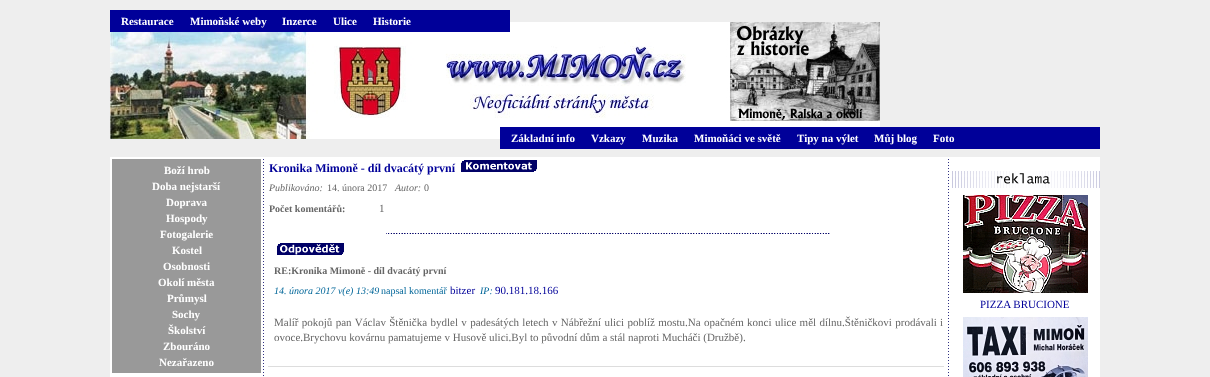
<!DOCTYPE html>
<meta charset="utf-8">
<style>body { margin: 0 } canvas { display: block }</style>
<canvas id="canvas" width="1210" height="377"></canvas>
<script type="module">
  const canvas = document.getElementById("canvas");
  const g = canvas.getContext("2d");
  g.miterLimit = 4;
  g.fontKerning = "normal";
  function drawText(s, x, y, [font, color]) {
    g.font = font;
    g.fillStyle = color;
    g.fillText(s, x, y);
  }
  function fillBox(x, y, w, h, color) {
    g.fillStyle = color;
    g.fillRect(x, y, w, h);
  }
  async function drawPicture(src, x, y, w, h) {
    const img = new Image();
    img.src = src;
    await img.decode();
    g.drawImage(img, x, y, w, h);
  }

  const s1 = ["bold 11px Liberation Serif", "#FFFFFF"];
  const s2 = ["bold 12px Liberation Serif", "#000099"];
  const s3 = ["italic 10px Liberation Serif", "#666666"];
  const s4 = ["10px Liberation Serif", "#666666"];
  const s5 = ["bold 10px Liberation Serif", "#666666"];
  const s6 = ["11px Liberation Serif", "#666666"];
  const s7 = ["italic 10px Liberation Serif", "#006699"];
  const s8 = ["10px Liberation Serif", "#006699"];
  const s9 = ["11px Liberation Serif", "#000099"];

  fillBox(0, 0, 1210, 377, "#EEEEEE");
  await drawPicture("pic1.png", 110, 22, 770, 117);
  fillBox(110, 10, 400, 22, "#000099");
  drawText("Restaurace", 121, 25, s1);
  drawText("Mimoňské weby", 190, 25, s1);
  drawText("Inzerce", 282, 25, s1);
  drawText("Ulice", 333, 25, s1);
  drawText("Historie", 373, 25, s1);
  fillBox(500, 127, 600, 22, "#000099");
  drawText("Základní info", 511, 142, s1);
  drawText("Vzkazy", 591, 142, s1);
  drawText("Muzika", 642, 142, s1);
  drawText("Mimoňáci ve světě", 694, 142, s1);
  drawText("Tipy na výlet", 797, 142, s1);
  drawText("Můj blog", 874, 142, s1);
  drawText("Foto", 933, 142, s1);
  fillBox(110, 157, 990, 220, "#FFFFFF");
  fillBox(112, 159, 149, 214, "#999999");
  drawText("Boží hrob", 164, 174, s1);
  drawText("Doba nejstarší", 152, 190, s1);
  drawText("Doprava", 166, 206, s1);
  drawText("Hospody", 166, 222, s1);
  drawText("Fotogalerie", 160, 238, s1);
  drawText("Kostel", 172, 254, s1);
  drawText("Osobnosti", 163, 270, s1);
  drawText("Okolí města", 158, 286, s1);
  drawText("Průmysl", 167, 302, s1);
  drawText("Sochy", 172, 318, s1);
  drawText("Školství", 168, 334, s1);
  drawText("Zbouráno", 163, 350, s1);
  drawText("Nezařazeno", 159, 366, s1);
  await drawPicture("pic2.png", 263, 159, 1, 217);
  drawText("Kronika Mimoně - díl dvacátý první", 269, 172, s2);
  await drawPicture("pic3.png", 461, 160, 76, 12);
  drawText("Publikováno:", 269, 191, s3);
  drawText("14. února 2017", 327, 191, s4);
  drawText("Autor:", 395, 191, s3);
  drawText("0", 424, 191, s4);
  drawText("Počet komentářů:", 269, 212, s5);
  drawText("1", 379, 212, s6);
  await drawPicture("pic4.png", 386, 233, 444, 1);
  await drawPicture("pic5.png", 277, 243, 67, 12);
  drawText("RE:Kronika Mimoně - díl dvacátý první", 274, 274, s5);
  drawText("14. února 2017 v(e) 13:49", 274, 294, s7);
  drawText("napsal komentář", 381, 294, s8);
  drawText("bitzer", 450, 294, s9);
  drawText("IP:", 480, 294, s7);
  drawText("90.181.18.166", 495, 294, s9);
  g.wordSpacing = "0.6px";
  drawText("Malíř pokojů pan Václav Štěnička bydlel v padesátých letech v Nábřežní ulici poblíž mostu.Na opačném konci ulice měl dílnu.Štěničkovi prodávali i", 274, 326, s6);
  g.wordSpacing = "0px";
  drawText("ovoce.Brychovu kovárnu pamatujeme v Husově ulici.Byl to původní dům a stál naproti Mucháči (Družbě).", 274, 341, s6);
  fillBox(268, 366, 676, 1, "#DDDDDD");
  await drawPicture("pic2.png", 948, 159, 1, 217);
  await drawPicture("pic6.png", 952, 171, 148, 17);
  await drawPicture("pic7.png", 963, 195, 125, 98);
  drawText("PIZZA BRUCIONE", 980, 308, s9);
  await drawPicture("pic8.png", 963, 317, 125, 60);
</script>
